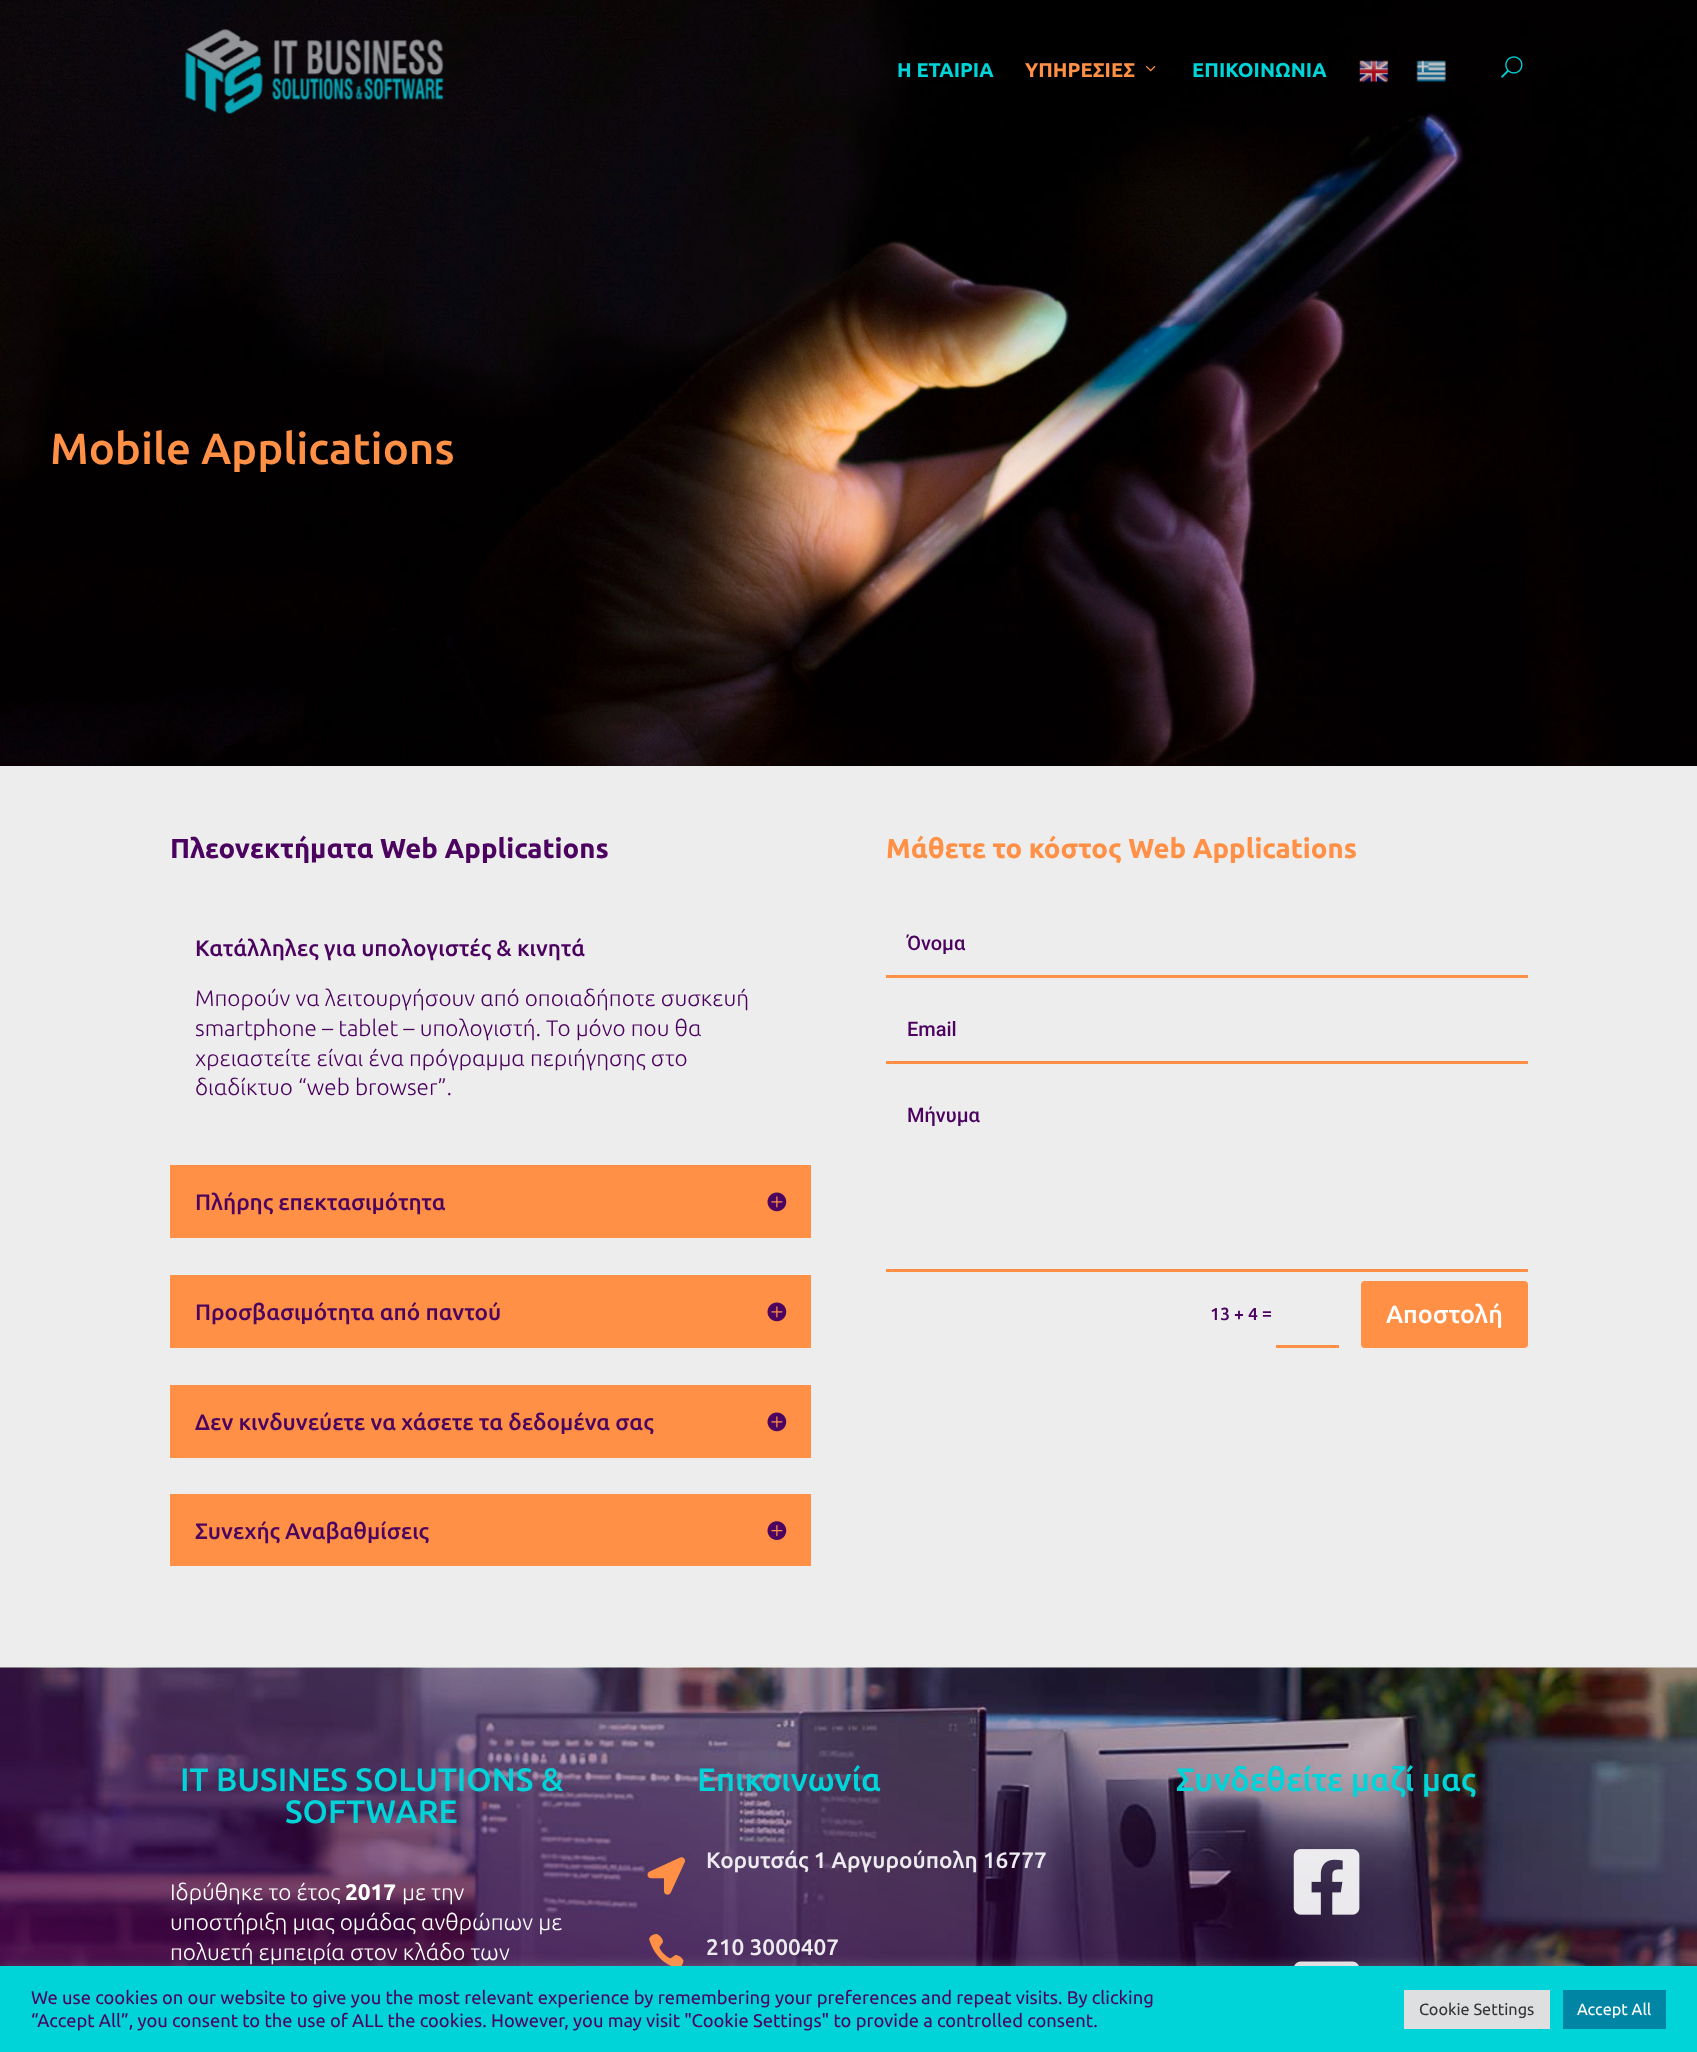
<!DOCTYPE html>
<meta charset="utf-8">
<style>body { margin: 0 } canvas { display: block }</style>
<canvas id="canvas" width="1697" height="2052"></canvas>
<script type="module">
  const canvas = document.getElementById("canvas");
  const g = canvas.getContext("2d");
  g.miterLimit = 4;
  g.fontKerning = "normal";
  function drawText(s, x, y, [font, color]) {
    g.font = font;
    g.fillStyle = color;
    g.fillText(s, x, y);
  }
  function fillBox(x, y, w, h, color) {
    g.fillStyle = color;
    g.fillRect(x, y, w, h);
  }
  function fillRounded(x, y, w, h, r, color) {
    g.fillStyle = color;
    g.beginPath();
    g.roundRect(x, y, w, h, r);
    g.fill();
  }
  async function drawPicture(src, x, y, w, h) {
    const img = new Image();
    img.src = src;
    await img.decode();
    g.drawImage(img, x, y, w, h);
  }

  const s1 = ["bold 20px Ubuntu", "#01D4D8"];
  const s2 = ["bold 20px Ubuntu", "#FF9046"];
  const s3 = ["500 43.75px Ubuntu", "#FF9046"];
  const s4 = ["bold 27.5px Ubuntu", "#4B035F"];
  const s5 = ["500 22.5px Ubuntu", "#4B035F"];
  const s6 = ["300 22.5px Ubuntu", "#4B035F"];
  const s7 = ["bold 27.5px Ubuntu", "#FF9046"];
  const s8 = ["500 20px Roboto", "#4B035F"];
  const s9 = ["500 17.5px Ubuntu", "#4B035F"];
  const s10 = ["500 25px Ubuntu", "#FFFFFF"];
  const s11 = ["500 32.5px Ubuntu", "#01D4D8"];
  const s12 = ["300 22.5px Ubuntu", "#FFFFFF"];
  const s13 = ["bold 22.5px Ubuntu", "#FFFFFF"];
  const s14 = ["500 22.5px Ubuntu", "#EDEBEF"];
  const s15 = ["18.33px Ubuntu", "#4B035F"];
  const s16 = ["16.25px Ubuntu", "#333333"];
  const s17 = ["16.25px Ubuntu", "#FFFFFF"];

  fillBox(0, 0, 1697, 2052, "#FFFFFF");
  await drawPicture("pic6.png", 0, 0, 1697, 766);
  await drawPicture("pic1.png", 185, 29, 259, 86);
  drawText("Η ΕΤΑΙΡΙΑ", 897, 77, s1);
  drawText("ΥΠΗΡΕΣΙΕΣ", 1025, 77, s2);
  await drawPicture("pic2.png", 1146, 66, 10, 6);
  drawText("ΕΠΙΚΟΙΝΩΝΙΑ", 1192, 77, s1);
  await drawPicture("pic3.png", 1359, 60, 30, 23);
  await drawPicture("pic4.png", 1416, 60, 30, 23);
  await drawPicture("pic5.png", 1501, 56, 22, 22);
  drawText("Mobile Applications", 50, 464, s3);
  fillBox(0, 766, 1697, 902, "#EDEDED");
  drawText("Πλεονεκτήματα Web Applications", 170, 858, s4);
  drawText("Κατάλληλες για υπολογιστές & κινητά", 195, 956, s5);
  drawText("Μπορούν να λειτουργήσουν από οποιαδήποτε συσκευή", 195, 1006, s6);
  drawText("smartphone – tablet – υπολογιστή. Το μόνο που θα", 195, 1036, s6);
  drawText("χρειαστείτε είναι ένα πρόγραμμα περιήγησης στο", 195, 1066, s6);
  drawText("διαδίκτυο “web browser”.", 195, 1095, s6);
  fillBox(170, 1165, 641, 73, "#FF9046");
  drawText("Πλήρης επεκτασιμότητα", 195, 1210, s5);
  await drawPicture("pic7.png", 767, 1192, 20, 20);
  fillBox(170, 1275, 641, 73, "#FF9046");
  drawText("Προσβασιμότητα από παντού", 195, 1320, s5);
  await drawPicture("pic7.png", 767, 1302, 20, 20);
  fillBox(170, 1385, 641, 73, "#FF9046");
  drawText("Δεν κινδυνεύετε να χάσετε τα δεδομένα σας", 195, 1430, s5);
  await drawPicture("pic7.png", 767, 1412, 20, 20);
  fillBox(170, 1494, 641, 72, "#FF9046");
  drawText("Συνεχής Αναβαθμίσεις", 195, 1539, s5);
  await drawPicture("pic8.png", 767, 1521, 20, 19);
  drawText("Μάθετε το κόστος Web Applications", 886, 858, s7);
  fillBox(886, 975, 642, 3, "#FF9046");
  drawText("Όνομα", 907, 950, s8);
  fillBox(886, 1061, 642, 3, "#FF9046");
  drawText("Email", 907, 1036, s8);
  fillBox(886, 1269, 642, 3, "#FF9046");
  drawText("Μήνυμα", 907, 1122, s8);
  drawText("13 + 4", 1210, 1320, s9);
  drawText("=", 1262, 1319, s9);
  fillBox(1276, 1345, 63, 3, "#FF9046");
  fillRounded(1361, 1281, 167, 67, 4, "#FF9046");
  drawText("Αποστολή", 1386, 1323, s10);
  await drawPicture("pic9.png", 0, 1667, 1697, 299);
  drawText("IT BUSINES SOLUTIONS &", 180, 1791, s11);
  drawText("SOFTWARE", 285, 1823, s11);
  drawText("Ιδρύθηκε το έτος", 170, 1900, s12);
  drawText("2017", 345, 1900, s13);
  drawText("με την", 402, 1900, s12);
  drawText("υποστήριξη μιας ομάδας ανθρώπων με", 170, 1930, s12);
  drawText("πολυετή εμπειρία στον κλάδο των", 170, 1960, s12);
  drawText("Επικοινωνία", 697, 1791, s11);
  await drawPicture("pic10.png", 647, 1857, 39, 38);
  drawText("Κορυτσάς 1 Αργυρούπολη 16777", 706, 1868, s14);
  await drawPicture("pic11.png", 649, 1933, 35, 33);
  drawText("210 3000407", 706, 1955, s14);
  drawText("Συνδεθείτε μαζί μας", 1176, 1791, s11);
  await drawPicture("pic12.png", 1293, 1849, 67, 66);
  await drawPicture("pic13.png", 1294, 1961, 65, 5);
  g.fillStyle = "rgba(172, 171, 171, 0.3)";
  g.filter = "blur(6px)";
  g.beginPath();
  g.rect(0, 1965, 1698, 86);
  g.fill();
  g.filter = "none";
  fillBox(0, 1966, 1697, 86, "#01D4D8");
  drawText("We use cookies on our website to give you the most relevant experience by remembering your preferences and repeat visits. By clicking", 31, 2004, s15);
  drawText("“Accept All”, you consent to the use of ALL the cookies. However, you may visit \"Cookie Settings\" to provide a controlled consent.", 31, 2027, s15);
  fillBox(1404, 1990, 146, 39, "#DEDFE0");
  drawText("Cookie Settings", 1419, 2015, s16);
  fillBox(1563, 1990, 103, 39, "#0086A4");
  drawText("Accept All", 1577, 2015, s17);
</script>
